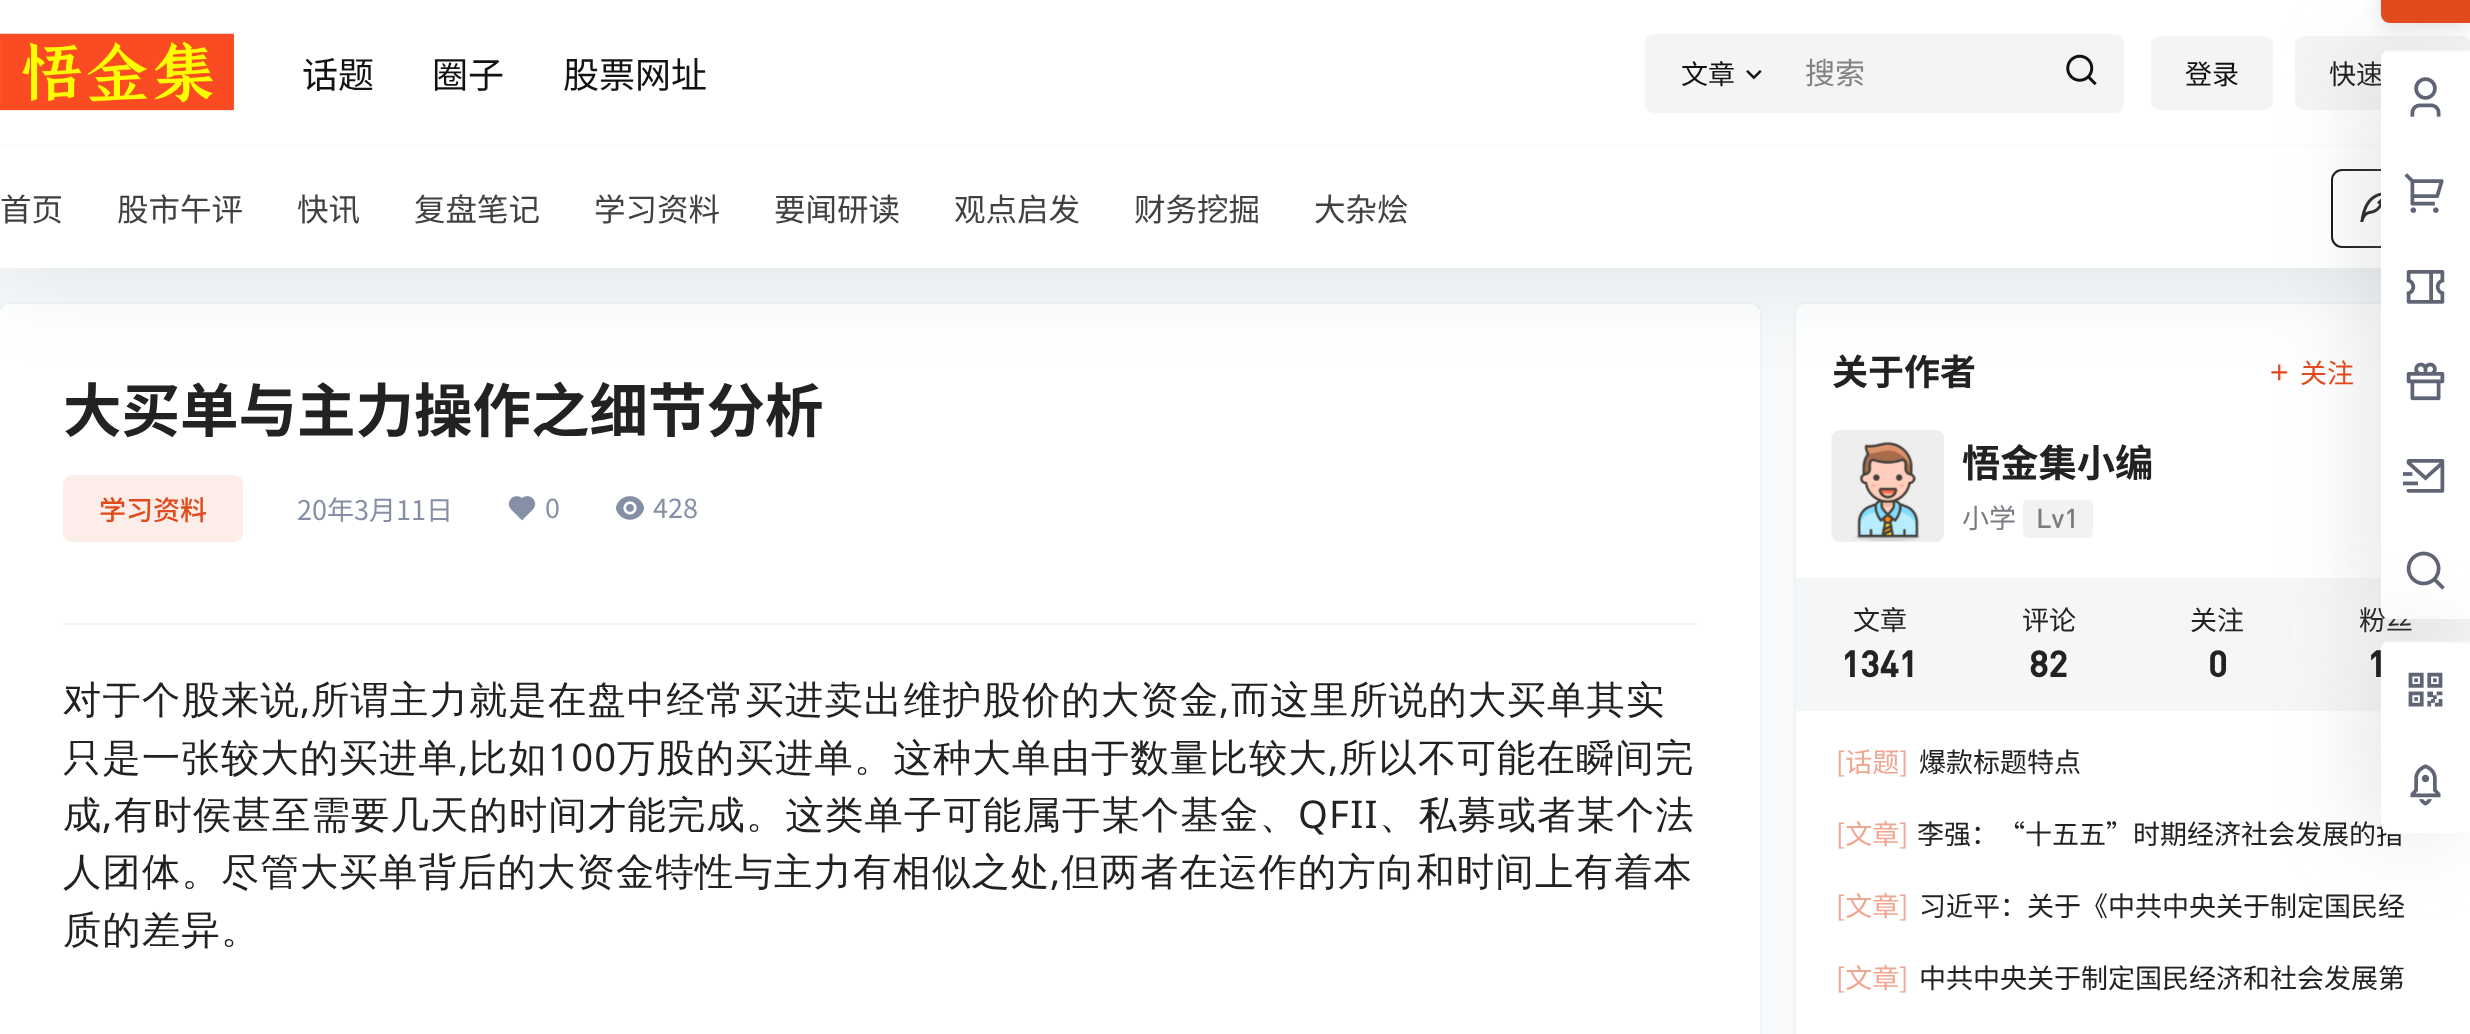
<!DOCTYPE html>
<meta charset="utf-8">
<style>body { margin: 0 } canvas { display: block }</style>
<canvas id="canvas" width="2470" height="1034"></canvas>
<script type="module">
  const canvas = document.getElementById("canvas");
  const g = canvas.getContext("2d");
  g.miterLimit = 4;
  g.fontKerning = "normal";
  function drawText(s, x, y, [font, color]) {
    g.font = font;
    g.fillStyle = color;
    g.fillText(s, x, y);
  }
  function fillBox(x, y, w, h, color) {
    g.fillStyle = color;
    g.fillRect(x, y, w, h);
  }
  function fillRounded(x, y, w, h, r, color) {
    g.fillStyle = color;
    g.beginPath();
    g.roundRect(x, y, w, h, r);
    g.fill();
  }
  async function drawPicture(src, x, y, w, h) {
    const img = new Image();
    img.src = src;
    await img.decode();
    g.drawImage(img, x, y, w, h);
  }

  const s1 = ["36px Noto Sans CJK SC", "#121212"];
  const s2 = ["27px Noto Sans CJK SC", "#121212"];
  const s3 = ["30px Noto Sans CJK SC", "#838383"];
  const s4 = ["31.5px Noto Sans CJK SC", "#414141"];
  const s5 = ["27px Noto Sans CJK SC", "#222222"];
  const s6 = ["bold 58.5px Noto Sans CJK SC", "#222222"];
  const s7 = ["500 27px Noto Sans CJK SC", "#E04A1C"];
  const s8 = ["27px Noto Sans CJK SC", "#8590A6"];
  const s9 = ["500 38.25px WenQuanYi Zen Hei", "#222222"];
  const s10 = ["38.25px Noto Sans", "#222222"];
  const s11 = ["bold 36px Noto Sans CJK SC", "#222222"];
  const s12 = ["27px Noto Sans CJK SC", "#E04A1C"];
  const s13 = ["bold 38.25px Noto Sans CJK SC", "#222222"];
  const s14 = ["27px Noto Sans CJK SC", "#797C80"];
  const s15 = ["500 27px DIN", "#797C80"];
  const s16 = ["bold 36px DIN", "#222222"];
  const s17 = ["27px Noto Sans CJK SC", "#F0A58E"];

  fillBox(0, 0, 2470, 1034, "#F7F9FA");
  g.fillStyle = "rgba(98, 124, 153, 0.1)";
  g.filter = "blur(2px)";
  g.beginPath();
  g.roundRect(0, 304, 1760, 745, 9);
  g.fill();
  g.filter = "none";
  fillRounded(0, 304, 1760, 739, 9, "#FFFFFF");
  g.fillStyle = "rgba(98, 124, 153, 0.1)";
  g.filter = "blur(2px)";
  g.beginPath();
  g.roundRect(1796, 304, 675, 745, 9);
  g.fill();
  g.filter = "none";
  fillRounded(1796, 304, 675, 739, 9, "#FFFFFF");
  await drawPicture("pic15.png", 2271, 364, 17, 17);
  g.fillStyle = "rgba(17, 58, 93, 0.1)";
  g.filter = "blur(45px)";
  g.beginPath();
  g.rect(0, 11, 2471, 268);
  g.fill();
  g.filter = "none";
  fillBox(0, 0, 2470, 144, "#FFFFFF");
  await drawPicture("pic1.png", 0, 33, 234, 78);
  drawText("话题", 302, 88, s1);
  drawText("圈子", 432, 88, s1);
  drawText("股票网址", 563, 88, s1);
  fillRounded(1645, 34, 479, 79, 9, "#F4F4F4");
  drawText("文章", 1681, 84, s2);
  await drawPicture("pic2.png", 1746, 70, 16, 10);
  drawText("搜索", 1805, 84, s3);
  await drawPicture("pic3.png", 2066, 54, 31, 32);
  fillRounded(2151, 36, 122, 74, 9, "#F4F4F4");
  drawText("登录", 2185, 84, s2);
  fillRounded(2295, 36, 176, 74, 9, "#F4F4F4");
  drawText("快速", 2329, 84, s2);
  fillBox(0, 146, 2381, 122, "#FFFFFF");
  fillBox(0, 144, 2381, 2, "#FCFCFC");
  drawText("首页", 0, 221, s4);
  drawText("股市午评", 117, 221, s4);
  drawText("快讯", 297, 221, s4);
  drawText("复盘笔记", 414, 221, s4);
  drawText("学习资料", 594, 221, s4);
  drawText("要闻研读", 774, 221, s4);
  drawText("观点启发", 954, 221, s4);
  drawText("财务挖掘", 1134, 221, s4);
  drawText("大杂烩", 1314, 221, s4);
  g.beginPath();
  g.roundRect(2332, 170, 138, 77, 10);
  g.strokeStyle = "#121212";
  g.lineWidth = 2;
  g.stroke();
  await drawPicture("pic4.png", 2360, 192, 21, 30);
  fillBox(1796, 578, 674, 133, "#F5F6F7");
  g.fillStyle = "rgba(181, 181, 181, 0.32)";
  g.filter = "blur(39.5px)";
  g.beginPath();
  g.roundRect(2363, 50, 90, 569, 9);
  g.fill();
  g.filter = "none";
  drawText("粉丝", 2359, 630, s5);
  g.fillStyle = "#FFFFFF";
  g.beginPath();
  g.moveTo(2390, 50);
  g.lineTo(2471, 50);
  g.lineTo(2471, 619);
  g.lineTo(2390, 619);
  g.bezierCurveTo(2385, 619, 2381, 615, 2381, 610);
  g.lineTo(2381, 59);
  g.bezierCurveTo(2381, 54, 2385, 50, 2390, 50);
  g.closePath();
  g.fill();
  fillBox(2385, 50, 85, 2, "#F5F6F7");
  g.fillStyle = "rgba(0, 0, 0, 0.1)";
  g.filter = "blur(9px)";
  g.beginPath();
  g.roundRect(2381, -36, 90, 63, 9);
  g.fill();
  g.filter = "none";
  g.fillStyle = "#E04A1C";
  g.beginPath();
  g.moveTo(2390, -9);
  g.lineTo(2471, -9);
  g.lineTo(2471, 23);
  g.lineTo(2390, 23);
  g.bezierCurveTo(2385, 23, 2381, 19, 2381, 14);
  g.lineTo(2381, 0);
  g.bezierCurveTo(2381, -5, 2385, -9, 2390, -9);
  g.closePath();
  g.fill();
  await drawPicture("pic5.png", 2410, 77, 31, 40);
  await drawPicture("pic6.png", 2404, 173, 40, 40);
  await drawPicture("pic7.png", 2406, 270, 39, 34);
  await drawPicture("pic8.png", 2406, 362, 39, 39);
  await drawPicture("pic9.png", 2403, 459, 42, 34);
  await drawPicture("pic10.png", 2406, 551, 39, 39);
  g.fillStyle = "rgba(181, 181, 181, 0.32)";
  g.filter = "blur(39.5px)";
  g.beginPath();
  g.roundRect(2363, 641, 90, 192, 9);
  g.fill();
  g.filter = "none";
  drawText("李强：“十五五”时期经济社会发展的指", 1917, 844, s5);
  g.fillStyle = "#FFFFFF";
  g.beginPath();
  g.moveTo(2390, 641);
  g.lineTo(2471, 641);
  g.lineTo(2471, 833);
  g.lineTo(2390, 833);
  g.bezierCurveTo(2385, 833, 2381, 829, 2381, 824);
  g.lineTo(2381, 650);
  g.bezierCurveTo(2381, 645, 2385, 641, 2390, 641);
  g.closePath();
  g.fill();
  fillBox(2385, 641, 85, 2, "#F5F6F7");
  await drawPicture("pic11.png", 2408, 672, 35, 35);
  await drawPicture("pic12.png", 2410, 764, 31, 42);
  fillBox(63, 623, 1634, 2, "#F5F6F7");
  drawText("大买单与主力操作之细节分析", 63, 432, s6);
  fillRounded(63, 475, 180, 67, 9, "#FCEDE8");
  drawText("学习资料", 99, 520, s7);
  g.save();
  g.beginPath();
  g.rect(297, 495, 155, 27);
  g.clip();
  drawText("20年3月11日", 297, 520, s8);
  g.restore();
  await drawPicture("pic13.png", 508, 496, 28, 25);
  drawText("0", 545, 518, s8);
  await drawPicture("pic14.png", 615, 496, 30, 24);
  drawText("428", 653, 518, s8);
  g.letterSpacing = "1.25px";
  drawText("对于个股来说", 63, 713, s9);
  drawText(",", 300, 713, s10);
  drawText("所谓主力就是在盘中经常买进卖出维护股价的大资金", 311, 713, s9);
  drawText(",", 1219, 713, s10);
  drawText("而这里所说的大买单其实", 1231, 713, s9);
  drawText("只是一张较大的买进单", 63, 771, s9);
  drawText(",", 458, 771, s10);
  drawText("比如", 469, 771, s9);
  drawText("100", 548, 771, s10);
  drawText("万股的买进单。这种大单由于数量比较大", 617, 771, s9);
  drawText(",", 1328, 771, s10);
  drawText("所以不可能在瞬间完", 1339, 771, s9);
  drawText("成", 63, 828, s9);
  drawText(",", 102, 828, s10);
  drawText("有时侯甚至需要几天的时间才能完成。这类单子可能属于某个基金、", 114, 828, s9);
  drawText("QFII", 1298, 828, s10);
  drawText("、私募或者某个法", 1379, 828, s9);
  drawText("人团体。尽管大买单背后的大资金特性与主力有相似之处", 63, 885, s9);
  drawText(",", 1050, 885, s10);
  drawText("但两者在运作的方向和时间上有着本", 1061, 885, s9);
  drawText("质的差异。", 63, 943, s9);
  g.letterSpacing = "0px";
  drawText("关于作者", 1832, 385, s11);
  drawText("关注", 2300, 383, s12);
  fillRounded(1832, 430, 112, 112, 9, "#EEEEEE");
  await drawPicture("pic16.png", 1831, 429, 113, 113);
  drawText("悟金集小编", 1962, 477, s13);
  drawText("小学", 1962, 528, s14);
  fillRounded(2023, 500, 70, 38, 5, "#F2F2F2");
  drawText("Lv1", 2036, 528, s15);
  drawText("文章", 1853, 630, s5);
  drawText("1341", 1841, 677, s16);
  drawText("评论", 2022, 630, s5);
  drawText("82", 2029, 677, s16);
  drawText("关注", 2190, 630, s5);
  drawText("0", 2208, 677, s16);
  drawText("1", 2367, 677, s16);
  drawText("[话题]", 1836, 772, s17);
  drawText("爆款标题特点", 1919, 772, s5);
  drawText("[文章]", 1836, 844, s17);
  drawText("[文章]", 1836, 916, s17);
  drawText("习近平：关于《中共中央关于制定国民经", 1919, 916, s5);
  drawText("[文章]", 1836, 988, s17);
  drawText("中共中央关于制定国民经济和社会发展第", 1919, 988, s5);
</script>
